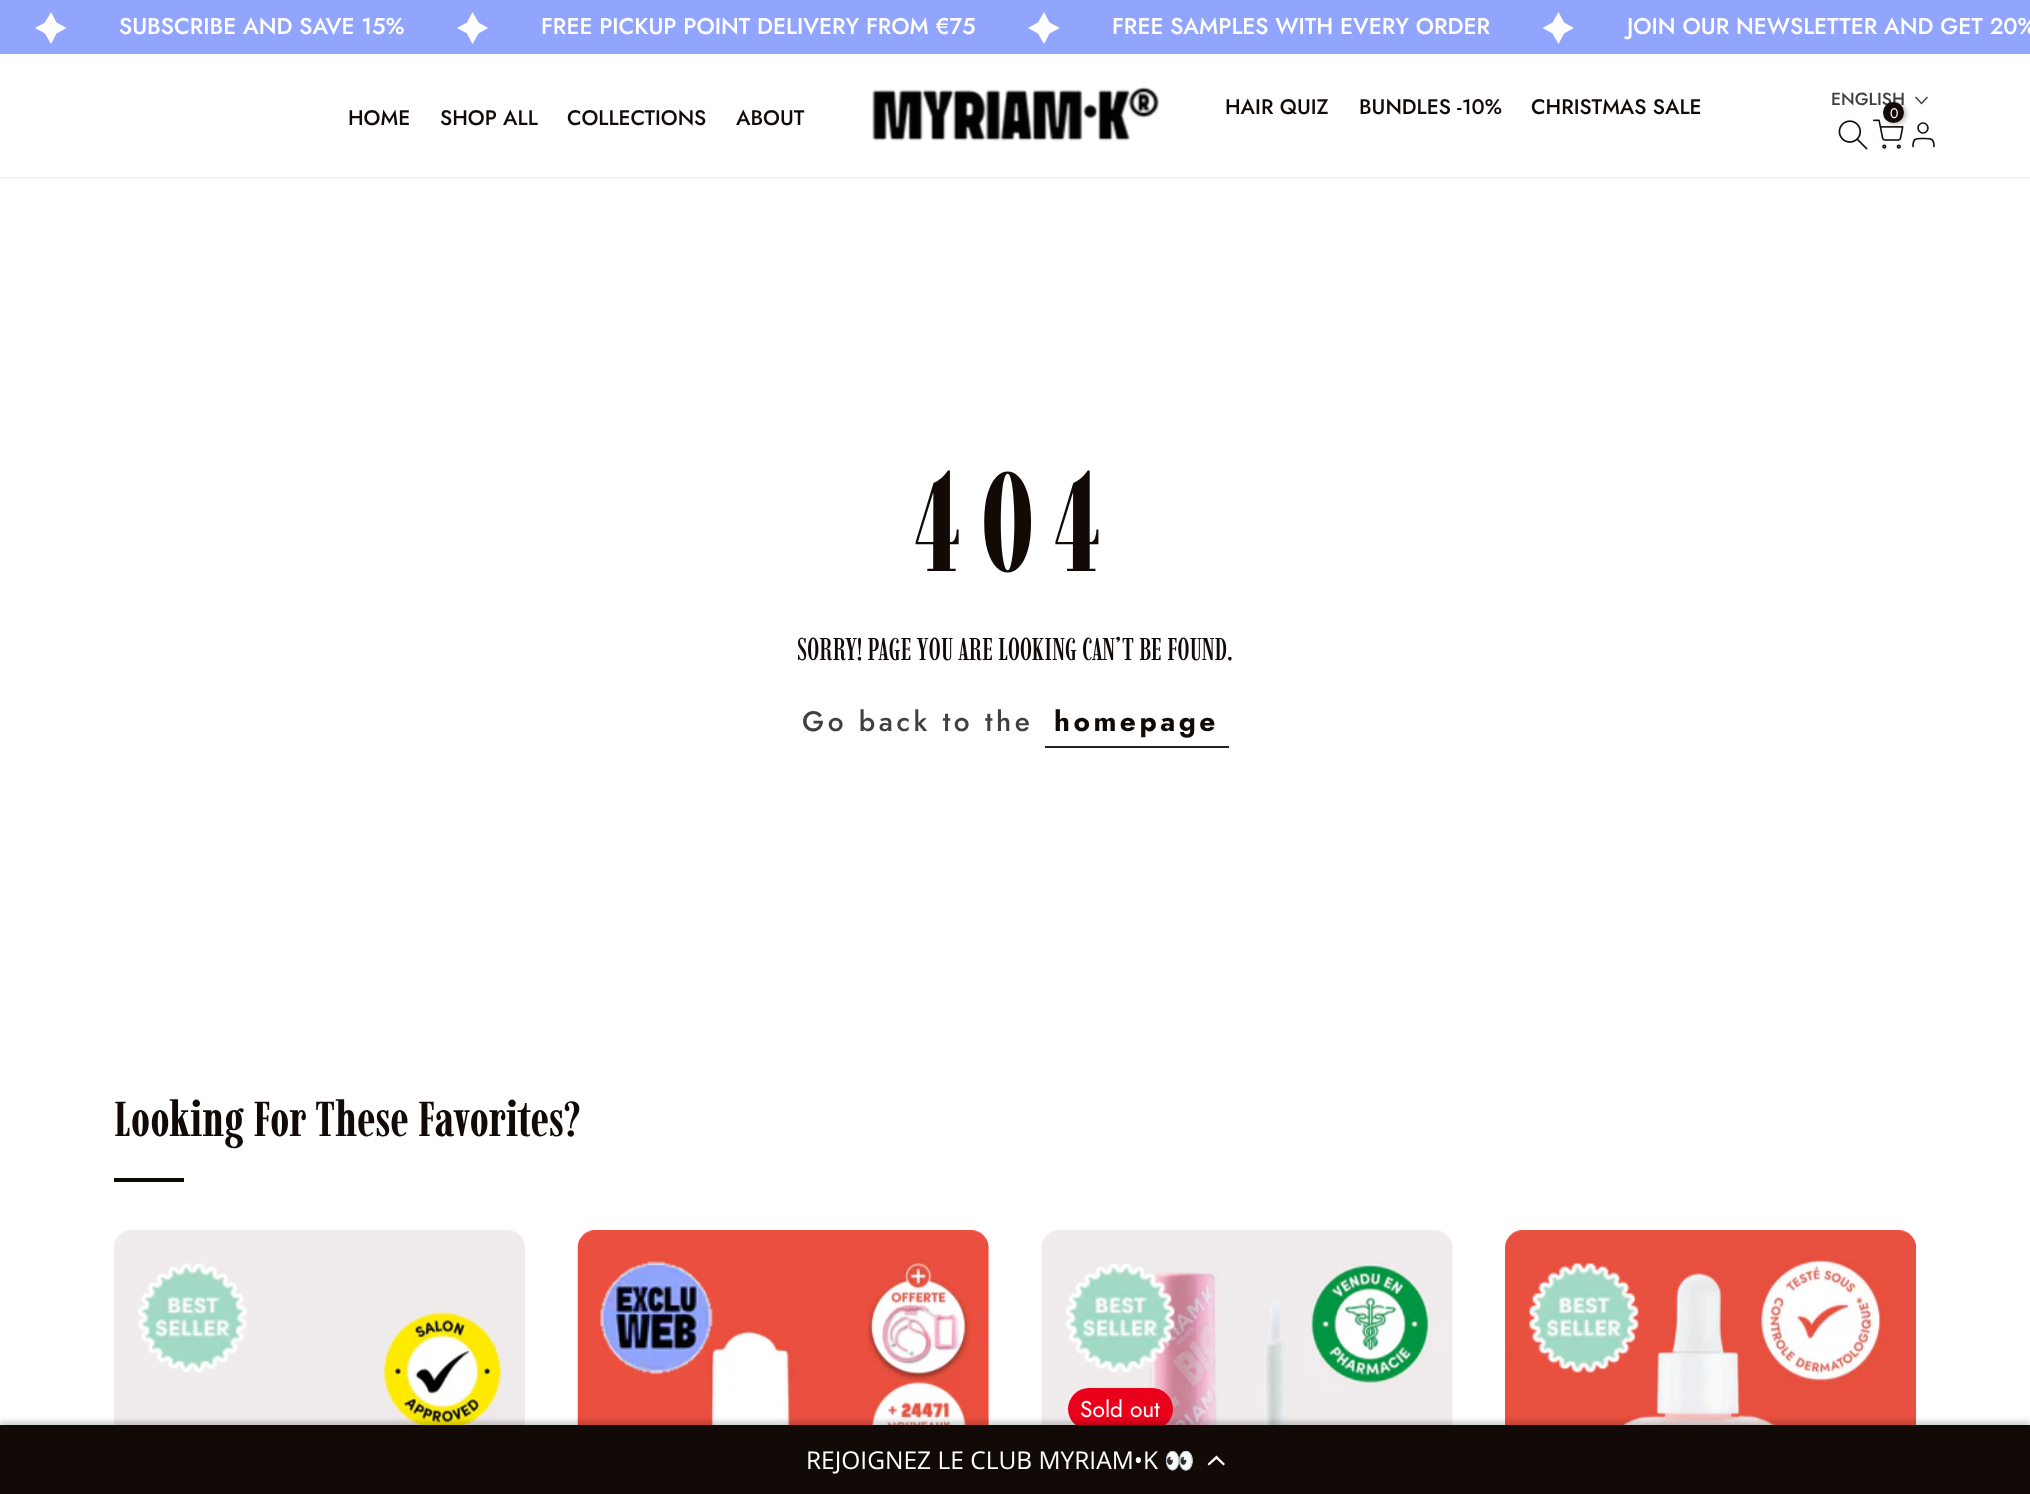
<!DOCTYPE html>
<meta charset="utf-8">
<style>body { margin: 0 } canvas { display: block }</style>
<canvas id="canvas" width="2030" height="1494"></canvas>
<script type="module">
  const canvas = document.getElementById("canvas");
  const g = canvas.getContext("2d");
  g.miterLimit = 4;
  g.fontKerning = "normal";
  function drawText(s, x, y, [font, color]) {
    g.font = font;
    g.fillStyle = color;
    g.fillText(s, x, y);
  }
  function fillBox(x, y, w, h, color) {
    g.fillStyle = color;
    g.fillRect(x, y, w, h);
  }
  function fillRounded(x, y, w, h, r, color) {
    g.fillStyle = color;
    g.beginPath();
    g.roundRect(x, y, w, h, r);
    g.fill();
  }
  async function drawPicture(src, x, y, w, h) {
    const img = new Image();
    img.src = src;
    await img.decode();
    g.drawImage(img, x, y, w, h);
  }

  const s1 = ["500 22.75px Jost", "#FFFFFF"];
  const s2 = ["500 21px Jost", "#110A07"];
  const s3 = ["500 17.5px Jost", "#423F3F"];
  const s4 = ["14px Jost", "#FFFFFF"];
  const s5 = ["bold 140px Imbue", "#110A07"];
  const s6 = ["500 31.5px Imbue", "#110A07"];
  const s7 = ["500 28px Jost", "#423F3F"];
  const s8 = ["bold 28px Jost", "#110A07"];
  const s9 = ["bold 49px 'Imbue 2'", "#110A07"];
  const s10 = ["22.75px Jost", "#FFFFFF"];
  const s11 = ["24.5px Open Sans", "#FFFFFF"];
  const s12 = ["24.5px Noto Color Emoji", "#FFFFFF"];

  fillBox(0, 0, 2030, 1494, "#FFFFFF");
  fillBox(0, 0, 2030, 54, "#91A5FF");
  g.fillStyle = "#FFFFFF";
  g.beginPath();
  g.moveTo(51, 12);
  g.lineTo(45, 22.5);
  g.lineTo(35, 28);
  g.lineTo(45, 33.5);
  g.lineTo(51, 44);
  g.lineTo(56.5, 33.5);
  g.lineTo(66.5, 28);
  g.lineTo(56.5, 22.5);
  g.closePath();
  g.fill();
  drawText("SUBSCRIBE AND SAVE 15%", 119, 34, s1);
  g.beginPath();
  g.moveTo(472.5, 12);
  g.lineTo(478.5, 22.5);
  g.lineTo(488, 28);
  g.lineTo(478.5, 33.5);
  g.lineTo(472.5, 44);
  g.lineTo(467, 33.5);
  g.lineTo(457, 28);
  g.lineTo(467, 22.5);
  g.closePath();
  g.fill();
  drawText("FREE PICKUP POINT DELIVERY FROM €75", 541, 34, s1);
  g.beginPath();
  g.moveTo(1044, 12);
  g.lineTo(1049.5, 22.5);
  g.lineTo(1059, 27.5);
  g.lineTo(1059, 28.5);
  g.lineTo(1049.5, 33.5);
  g.lineTo(1044, 44);
  g.lineTo(1038, 33.5);
  g.lineTo(1028, 28);
  g.lineTo(1038, 22.5);
  g.closePath();
  g.fill();
  drawText("FREE SAMPLES WITH EVERY ORDER", 1112, 34, s1);
  g.beginPath();
  g.moveTo(1558.5, 12);
  g.lineTo(1564, 22.5);
  g.lineTo(1573, 27.5);
  g.lineTo(1573, 28.5);
  g.lineTo(1564, 33.5);
  g.lineTo(1558.5, 44);
  g.lineTo(1552.5, 33.5);
  g.lineTo(1542.5, 28);
  g.lineTo(1552.5, 22.5);
  g.closePath();
  g.fill();
  drawText("JOIN OUR NEWSLETTER AND GET 20%", 1627, 34, s1);
  fillBox(0, 177, 2030, 2, "#F3F3F3");
  drawText("HOME", 348, 125, s2);
  drawText("SHOP ALL", 440, 125, s2);
  drawText("COLLECTIONS", 567, 125, s2);
  drawText("ABOUT", 736, 125, s2);
  await drawPicture("pic1.png", 872, 86, 287, 55);
  drawText("HAIR QUIZ", 1225, 114, s2);
  drawText("BUNDLES -10%", 1359, 114, s2);
  drawText("CHRISTMAS SALE", 1531, 114, s2);
  drawText("ENGLISH", 1831, 105, s3);
  g.beginPath();
  g.moveTo(1927, 97.5);
  g.lineTo(1921.5, 103.5);
  g.lineTo(1916, 97.5);
  g.strokeStyle = "#423F3F";
  g.lineWidth = 1.5;
  g.lineCap = "square";
  g.stroke();
  await drawPicture("pic2.png", 1873, 119, 31, 30);
  g.fillStyle = "rgba(0, 0, 0, 0.3)";
  g.filter = "blur(2.5px)";
  g.beginPath();
  g.roundRect(1885, 103, 21, 21, 10.5);
  g.fill();
  g.filter = "none";
  g.fillStyle = "#110A07";
  g.beginPath();
  g.arc(1893.5, 112.5, 10.5, 0, Math.PI * 2);
  g.fill();
  drawText("0", 1890, 118, s4);
  await drawPicture("pic3.png", 1838, 120, 30, 30);
  g.beginPath();
  g.arc(1923, 128, 5, 0, Math.PI * 2);
  g.strokeStyle = "#110A07";
  g.lineWidth = 1.6;
  g.stroke();
  g.beginPath();
  g.moveTo(1934, 146.5);
  g.bezierCurveTo(1934, 138, 1930.5, 138.5, 1923, 138.5);
  g.bezierCurveTo(1916, 138.5, 1913, 138, 1913, 146.5);
  g.lineCap = "round";
  g.lineJoin = "round";
  g.stroke();
  g.letterSpacing = "14px";
  drawText("404", 913, 571, s5);
  g.letterSpacing = "0px";
  drawText("SORRY! PAGE YOU ARE LOOKING CAN’T BE FOUND.", 797, 660, s6);
  g.letterSpacing = "3.5px";
  drawText("Go back to the", 802, 731, s7);
  drawText("homepage", 1054, 731, s8);
  fillBox(1045, 746, 184, 2, "#222222");
  g.letterSpacing = "0px";
  drawText("Looking For These Favorites?", 114, 1136, s9);
  fillBox(114, 1178, 70, 4, "#110A07");
  await drawPicture("pic4.png", 114, 1230, 411, 195);
  await drawPicture("pic5.png", 138, 1263, 109, 110);
  await drawPicture("pic6.png", 577, 1230, 412, 195);
  await drawPicture("pic7.png", 599, 1261, 114, 114);
  await drawPicture("pic8.png", 1041, 1230, 412, 195);
  await drawPicture("pic9.png", 1065, 1263, 111, 110);
  fillRounded(1068, 1388, 105, 42, 21, "#EB001B");
  drawText("Sold out", 1080, 1417, s10);
  await drawPicture("pic10.png", 1505, 1230, 412, 195);
  await drawPicture("pic11.png", 1528, 1262, 112, 112);
  g.fillStyle = "rgba(0, 0, 0, 0.17)";
  g.filter = "blur(2.5px)";
  g.beginPath();
  g.rect(0, 1421, 2030, 70);
  g.fill();
  g.filter = "none";
  fillBox(0, 1425, 2030, 69, "#110A07");
  drawText("REJOIGNEZ LE CLUB MYRIAM•K", 806, 1469, s11);
  drawText("👀", 1164, 1469, s12);
  g.beginPath();
  g.moveTo(1216.5, 1459);
  g.lineTo(1209, 1465.5);
  g.lineTo(1207.5, 1464);
  g.lineTo(1216.5, 1455.5);
  g.lineTo(1225, 1464);
  g.lineTo(1223.5, 1465.5);
  g.closePath();
  g.fill();
</script>
